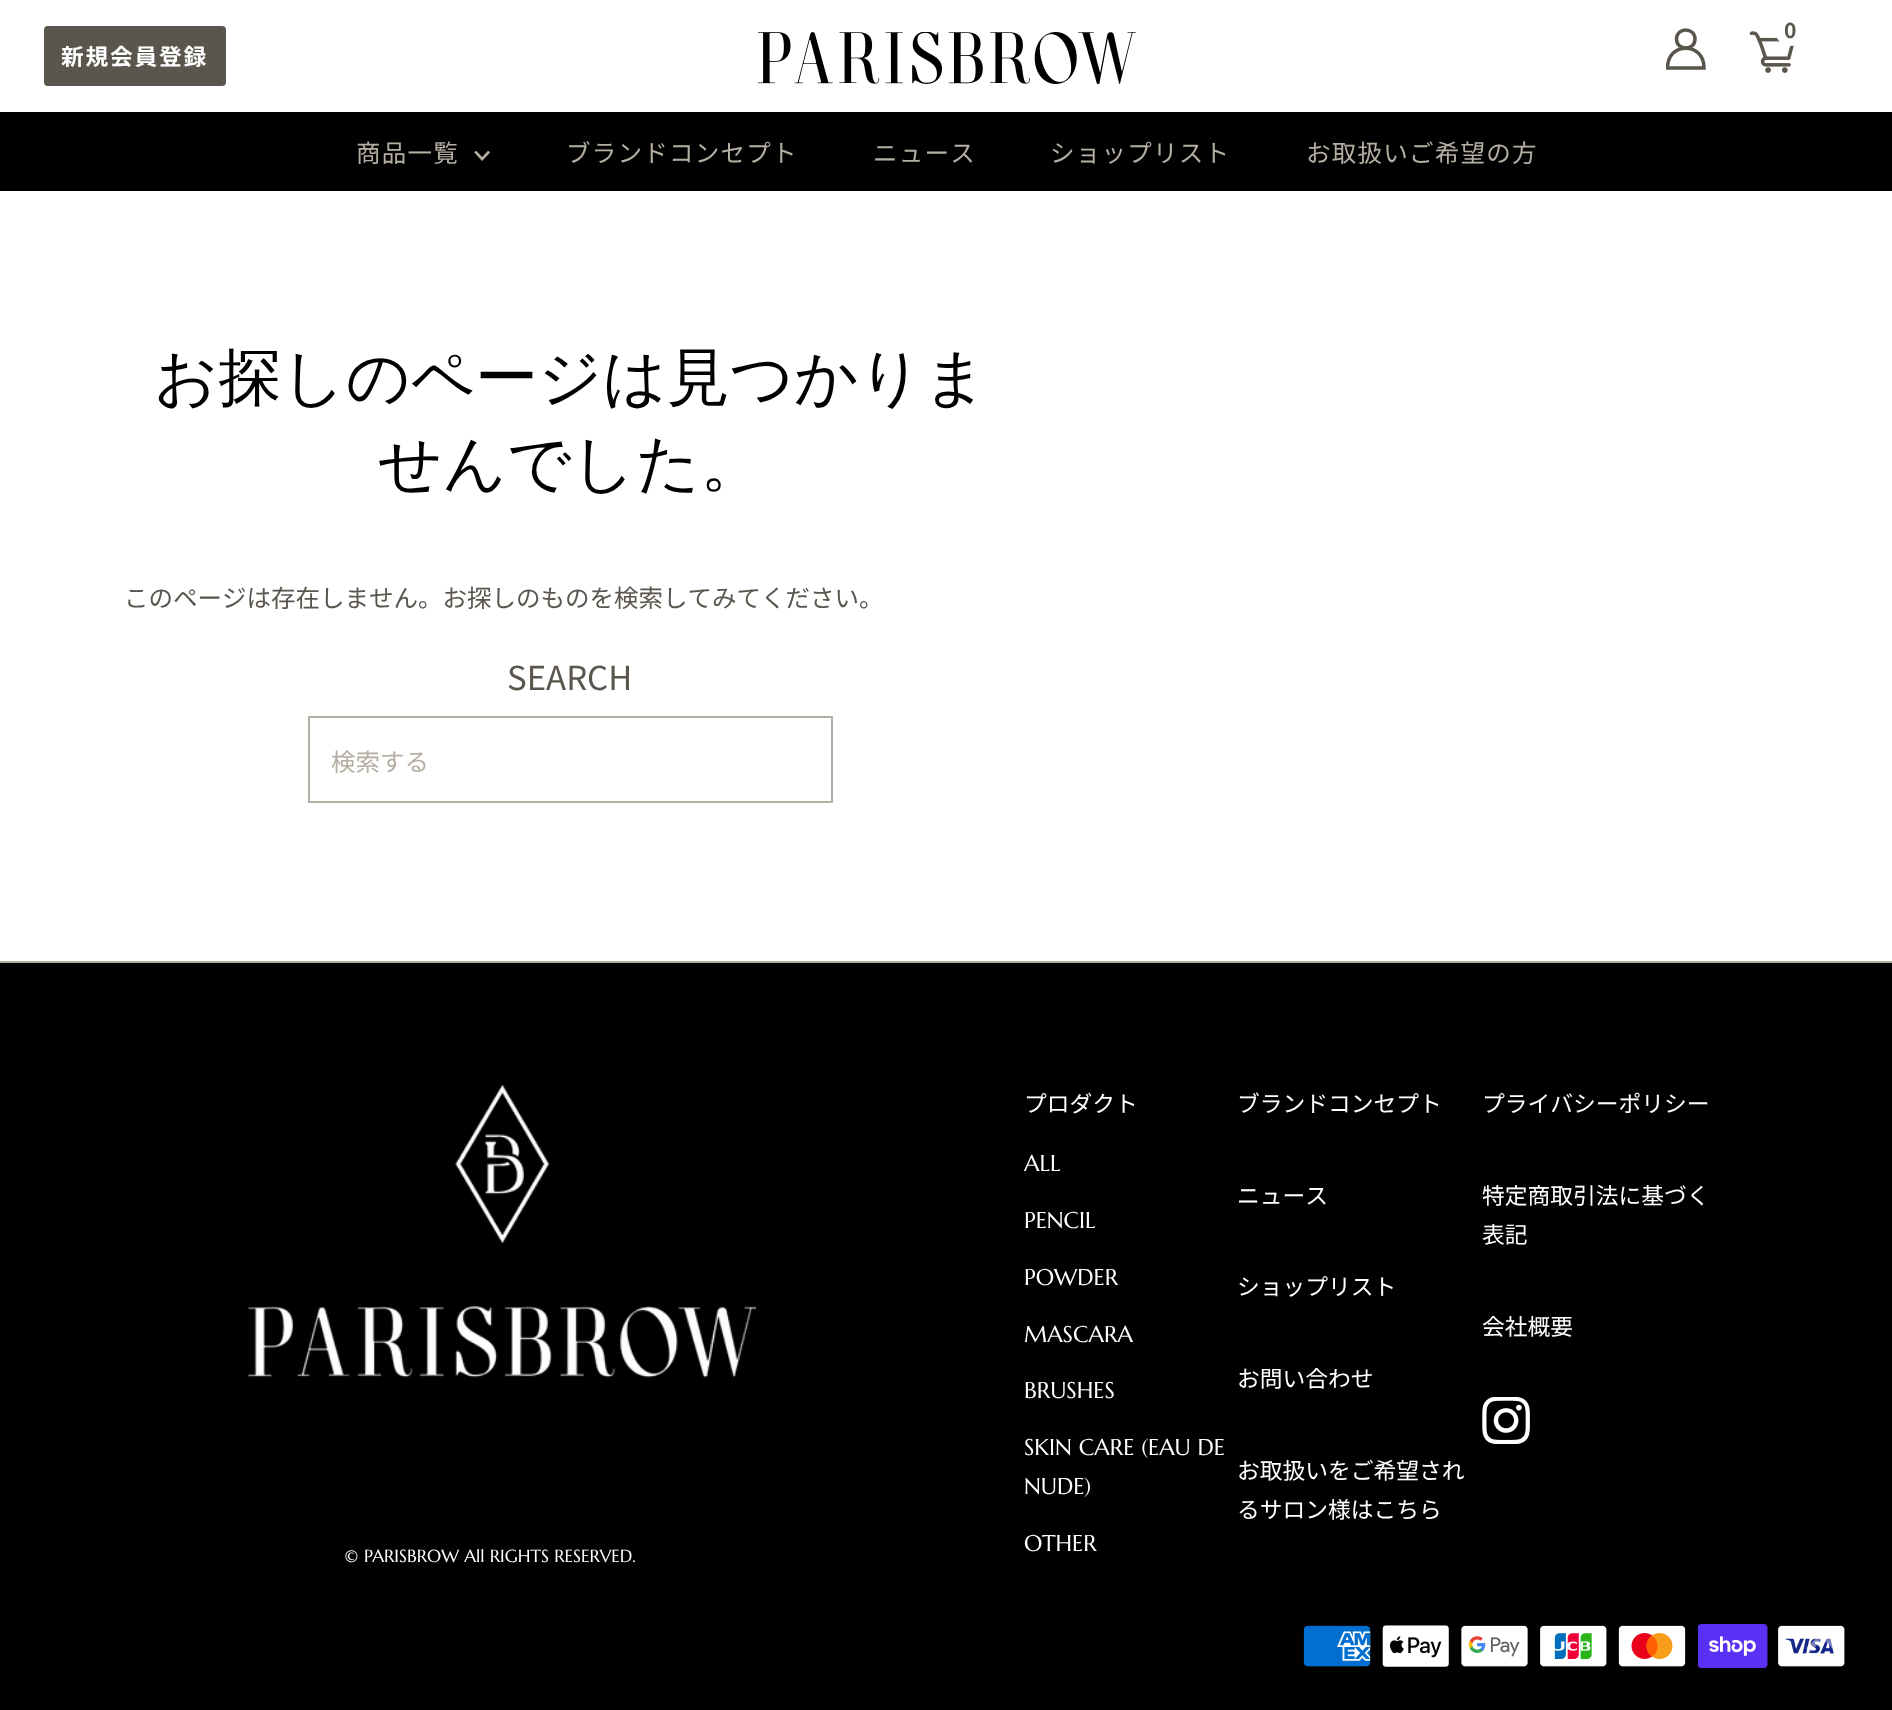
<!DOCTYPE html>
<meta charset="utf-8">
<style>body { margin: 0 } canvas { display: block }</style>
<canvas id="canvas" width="1892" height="1710"></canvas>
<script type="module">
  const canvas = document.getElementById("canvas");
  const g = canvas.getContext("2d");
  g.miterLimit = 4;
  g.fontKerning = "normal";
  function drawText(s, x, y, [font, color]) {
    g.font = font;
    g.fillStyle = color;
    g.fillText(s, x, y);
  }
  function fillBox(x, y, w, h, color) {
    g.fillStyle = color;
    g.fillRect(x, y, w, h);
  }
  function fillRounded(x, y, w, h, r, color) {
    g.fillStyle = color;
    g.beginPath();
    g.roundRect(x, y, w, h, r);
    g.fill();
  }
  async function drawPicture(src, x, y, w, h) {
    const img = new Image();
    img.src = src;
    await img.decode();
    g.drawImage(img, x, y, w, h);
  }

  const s1 = ["bold 22.75px Noto Sans JP", "#FFFFFF"];
  const s2 = ["bold 21px Noto Sans JP", "#5A564E"];
  const s3 = ["24.5px Noto Sans JP", "#B5AEA2"];
  const s4 = ["500 63px WenQuanYi Zen Hei", "#000000"];
  const s5 = ["24.5px Noto Sans JP", "#5A564E"];
  const s6 = ["33px Noto Sans JP", "#5A564E"];
  const s7 = ["22.75px Noto Sans JP", "#FFFFFF"];
  const s8 = ["22.75px Marcellus", "#FFFFFF"];
  const s9 = ["17.5px Marcellus", "#FFFFFF"];

  fillBox(0, 0, 1892, 1710, "#FFFFFF");
  fillRounded(44, 26, 182, 60, 4, "#5A564E");
  g.letterSpacing = "1.75px";
  drawText("新規会員登録", 61, 65, s1);
  await drawPicture("pic1.png", 758, 32, 378, 52);
  g.save();
  g.beginPath();
  g.rect(1666, 26, 40, 44);
  g.clip();
  g.beginPath();
  g.moveTo(1704, 68);
  g.bezierCurveTo(1704, 41.5, 1667.5, 41.5, 1667.5, 68);
  g.closePath();
  g.strokeStyle = "#5A564E";
  g.lineWidth = 3.5;
  g.stroke();
  g.restore();
  g.beginPath();
  g.moveTo(1695, 39);
  g.bezierCurveTo(1695, 51, 1676.5, 51, 1676.5, 39);
  g.bezierCurveTo(1676.5, 27, 1695, 27, 1695, 39);
  g.closePath();
  g.strokeStyle = "#5A564E";
  g.lineWidth = 3.5;
  g.stroke();
  await drawPicture("pic2.png", 1749, 31, 45, 42);
  fillRounded(1775, 14, 31, 32, 15.5, "#FFFFFF");
  g.letterSpacing = "0px";
  drawText("0", 1784, 38, s2);
  fillBox(0, 112, 1892, 79, "#000000");
  g.letterSpacing = "1.25px";
  drawText("商品一覧", 356, 162, s3);
  await drawPicture("pic3.png", 474, 151, 16, 10);
  drawText("ブランドコンセプト", 566, 162, s3);
  drawText("ニュース", 873, 162, s3);
  drawText("ショップリスト", 1050, 162, s3);
  drawText("お取扱いご希望の方", 1306, 162, s3);
  g.letterSpacing = "0px";
  drawText("お探しのページは見つかりま", 154, 399, s4);
  drawText("せんでした。", 378, 485, s4);
  drawText("このページは存在しません。お探しのものを検索してみてください。", 124, 607, s5);
  drawText("SEARCH", 507, 690, s6);
  g.strokeStyle = "#B5AEA2";
  g.lineWidth = 2;
  g.strokeRect(309, 717, 523, 85);
  drawText("検索する", 331, 771, s3);
  fillBox(0, 963, 1892, 747, "#000000");
  fillBox(0, 961, 1892, 2, "#B5AEA2");
  await drawPicture("pic4.png", 248, 1085, 508, 293);
  drawText("プロダクト", 1024, 1112, s7);
  drawText("ALL", 1024, 1171, s8);
  drawText("PENCIL", 1024, 1228, s8);
  drawText("POWDER", 1024, 1285, s8);
  drawText("MASCARA", 1024, 1342, s8);
  drawText("BRUSHES", 1024, 1398, s8);
  drawText("SKIN CARE (EAU DE", 1024, 1455, s8);
  drawText("NUDE)", 1024, 1494, s8);
  drawText("OTHER", 1024, 1551, s8);
  drawText("ブランドコンセプト", 1237, 1112, s7);
  drawText("ニュース", 1237, 1204, s7);
  drawText("ショップリスト", 1237, 1295, s7);
  drawText("お問い合わせ", 1237, 1387, s7);
  drawText("お取扱いをご希望され", 1237, 1479, s7);
  drawText("るサロン様はこちら", 1237, 1518, s7);
  drawText("プライバシーポリシー", 1482, 1112, s7);
  drawText("特定商取引法に基づく", 1482, 1204, s7);
  drawText("表記", 1482, 1243, s7);
  drawText("会社概要", 1482, 1335, s7);
  await drawPicture("pic5.png", 1482, 1397, 48, 47);
  drawText("© PARISBROW All RIGHTS RESERVED.", 344, 1562, s9);
  await drawPicture("pic6.png", 1303, 1625, 68, 42);
  await drawPicture("pic7.png", 1382, 1625, 67, 42);
  await drawPicture("pic8.png", 1461, 1625, 67, 42);
  await drawPicture("pic9.png", 1540, 1625, 67, 42);
  await drawPicture("pic10.png", 1618, 1625, 68, 42);
  await drawPicture("pic11.png", 1698, 1624, 70, 44);
  await drawPicture("pic12.png", 1778, 1625, 67, 42);
  g.fillStyle = "rgba(255, 255, 255, 0.4)";
  g.beginPath();
  g.moveTo(1823, 1631);
  g.lineTo(1806, 1648);
  g.lineTo(1810, 1652);
  g.lineTo(1823, 1639);
  g.lineTo(1836, 1652);
  g.lineTo(1840, 1648);
  g.closePath();
  g.fill();
</script>
